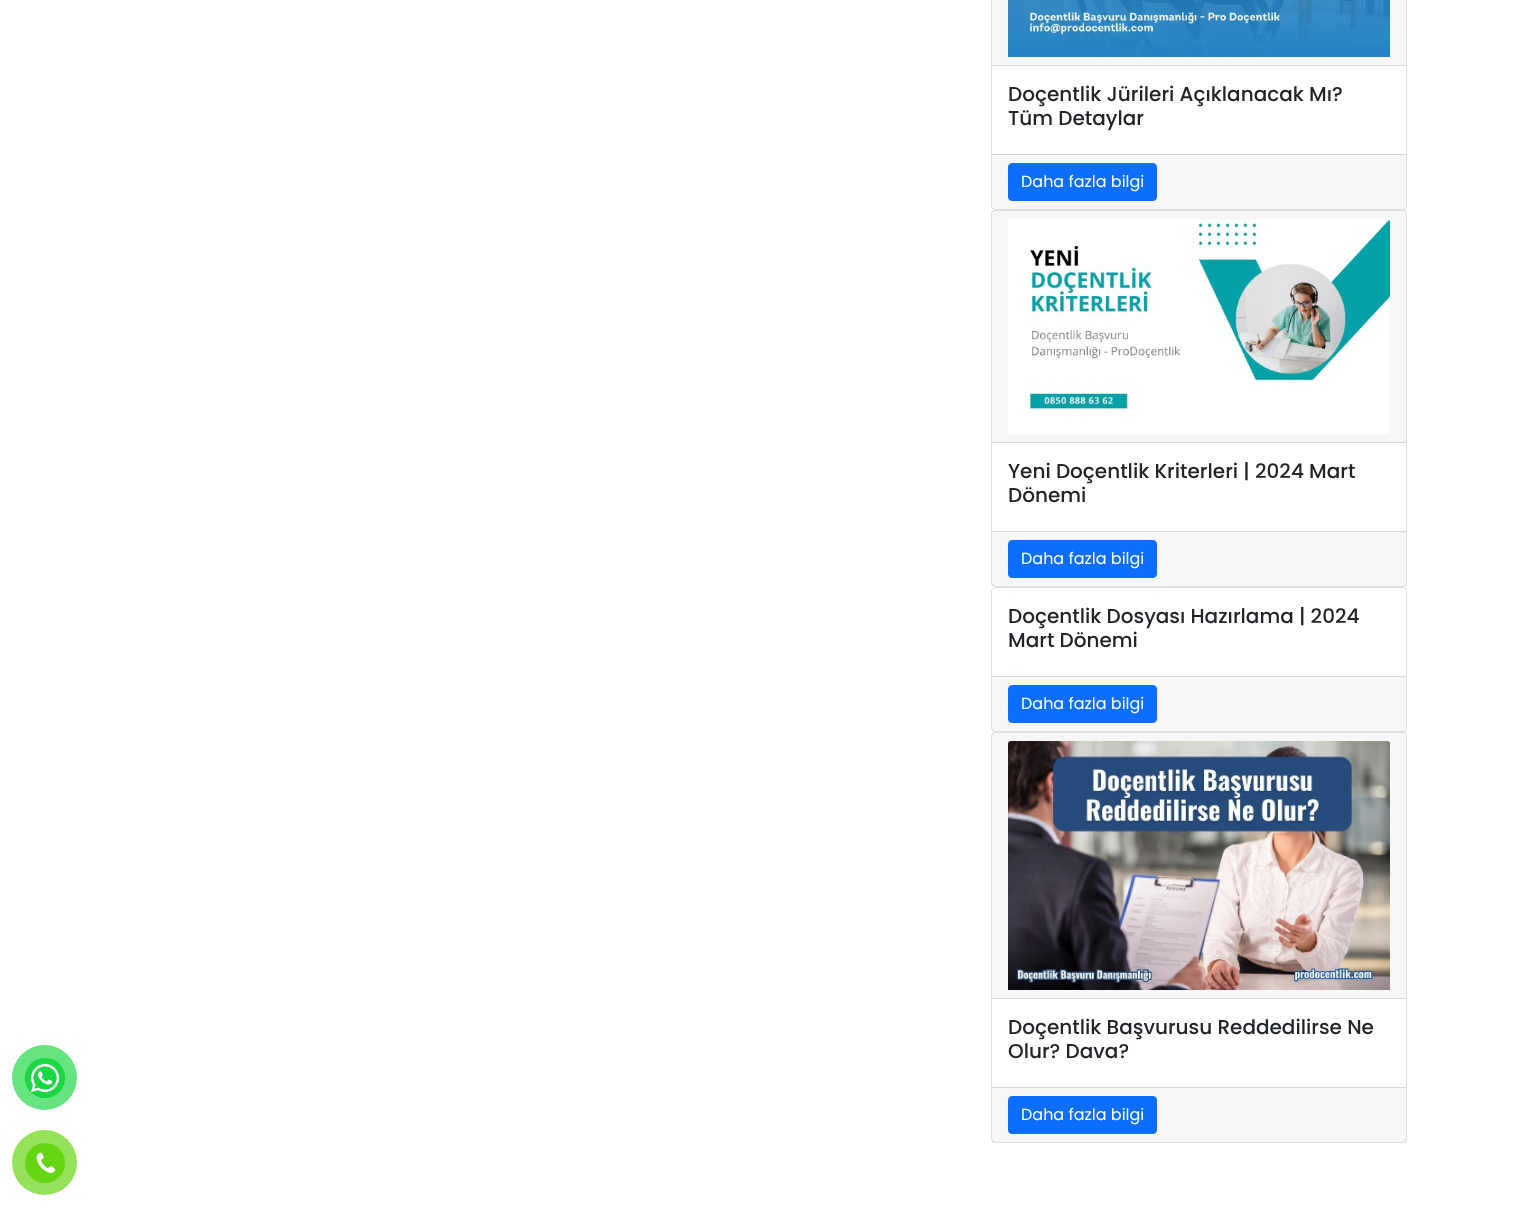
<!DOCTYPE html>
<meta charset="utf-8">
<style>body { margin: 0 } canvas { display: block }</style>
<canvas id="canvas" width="1518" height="1208"></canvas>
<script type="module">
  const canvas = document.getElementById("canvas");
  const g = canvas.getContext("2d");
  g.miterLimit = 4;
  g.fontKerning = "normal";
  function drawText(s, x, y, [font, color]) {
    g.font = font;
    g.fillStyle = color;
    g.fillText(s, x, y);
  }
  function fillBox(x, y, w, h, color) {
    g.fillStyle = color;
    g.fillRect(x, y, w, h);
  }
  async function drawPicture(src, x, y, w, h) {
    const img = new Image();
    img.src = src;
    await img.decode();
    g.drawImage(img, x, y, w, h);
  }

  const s1 = ["500 20px Poppins", "#212529"];
  const s2 = ["16px Poppins", "#FFFFFF"];

  fillBox(0, 0, 1518, 1208, "#FFFFFF");
  g.fillStyle = "#65E47F";
  g.beginPath();
  g.arc(44.5, 1077.5, 32.5, 0, Math.PI * 2);
  g.fill();
  g.fillStyle = "#1CD741";
  g.beginPath();
  g.arc(45, 1078, 20, 0, Math.PI * 2);
  g.fill();
  await drawPicture("pic1.png", 25, 1058, 40, 40);
  g.fillStyle = "#93E25A";
  g.beginPath();
  g.arc(44.5, 1162.5, 32.5, 0, Math.PI * 2);
  g.fill();
  g.fillStyle = "#64D613";
  g.beginPath();
  g.arc(45, 1163, 20, 0, Math.PI * 2);
  g.fill();
  await drawPicture("pic2.png", 36, 1152, 20, 21);
  g.beginPath();
  g.roundRect(991.5, -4.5, 415, 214, 3.5);
  g.strokeStyle = "#DFDFDF";
  g.stroke();
  fillBox(992, 0, 414, 65, "#F7F7F7");
  fillBox(992, 65, 414, 1, "#D8D8D8");
  await drawPicture("pic3.png", 1008, 0, 382, 57);
  drawText("Doçentlik Jürileri Açıklanacak Mı?", 1008, 101, s1);
  drawText("Tüm Detaylar", 1008, 125, s1);
  fillBox(992, 155, 414, 54, "rgba(0, 0, 0, 0.03)");
  fillBox(992, 154, 414, 1, "#D8D8D8");
  g.fillStyle = "#0D6EFD";
  g.beginPath();
  g.roundRect(1008.5, 163.5, 148, 37, 3.5);
  g.fill();
  g.strokeStyle = "#0D6EFD";
  g.stroke();
  drawText("Daha fazla bilgi", 1021, 187, s2);
  g.beginPath();
  g.roundRect(991.5, 210.5, 415, 376, 3.5);
  g.strokeStyle = "#DFDFDF";
  g.stroke();
  fillBox(992, 211, 414, 231, "rgba(0, 0, 0, 0.03)");
  fillBox(992, 442, 414, 1, "#D8D8D8");
  await drawPicture("pic4.png", 1008, 219, 382, 215);
  drawText("Yeni Doçentlik Kriterleri | 2024 Mart", 1008, 478, s1);
  drawText("Dönemi", 1008, 502, s1);
  fillBox(992, 532, 414, 54, "rgba(0, 0, 0, 0.03)");
  fillBox(992, 531, 414, 1, "#D8D8D8");
  g.fillStyle = "#0D6EFD";
  g.beginPath();
  g.roundRect(1008.5, 540.5, 148, 37, 3.5);
  g.fill();
  g.strokeStyle = "#0D6EFD";
  g.stroke();
  drawText("Daha fazla bilgi", 1021, 564, s2);
  g.beginPath();
  g.roundRect(991.5, 587.5, 415, 144, 3.5);
  g.strokeStyle = "#DFDFDF";
  g.stroke();
  drawText("Doçentlik Dosyası Hazırlama | 2024", 1008, 623, s1);
  drawText("Mart Dönemi", 1008, 647, s1);
  fillBox(992, 677, 414, 54, "rgba(0, 0, 0, 0.03)");
  fillBox(992, 676, 414, 1, "#D8D8D8");
  g.fillStyle = "#0D6EFD";
  g.beginPath();
  g.roundRect(1008.5, 685.5, 148, 37, 3.5);
  g.fill();
  g.strokeStyle = "#0D6EFD";
  g.stroke();
  drawText("Daha fazla bilgi", 1021, 709, s2);
  g.beginPath();
  g.roundRect(991.5, 732.5, 415, 410, 3.5);
  g.strokeStyle = "#DFDFDF";
  g.stroke();
  fillBox(992, 733, 414, 265, "rgba(0, 0, 0, 0.03)");
  fillBox(992, 998, 414, 1, "#D8D8D8");
  await drawPicture("pic5.png", 1008, 741, 382, 249);
  drawText("Doçentlik Başvurusu Reddedilirse Ne", 1008, 1034, s1);
  drawText("Olur? Dava?", 1008, 1058, s1);
  fillBox(992, 1088, 414, 54, "rgba(0, 0, 0, 0.03)");
  fillBox(992, 1087, 414, 1, "#D8D8D8");
  g.fillStyle = "#0D6EFD";
  g.beginPath();
  g.roundRect(1008.5, 1096.5, 148, 37, 3.5);
  g.fill();
  g.strokeStyle = "#0D6EFD";
  g.stroke();
  drawText("Daha fazla bilgi", 1021, 1120, s2);
</script>
